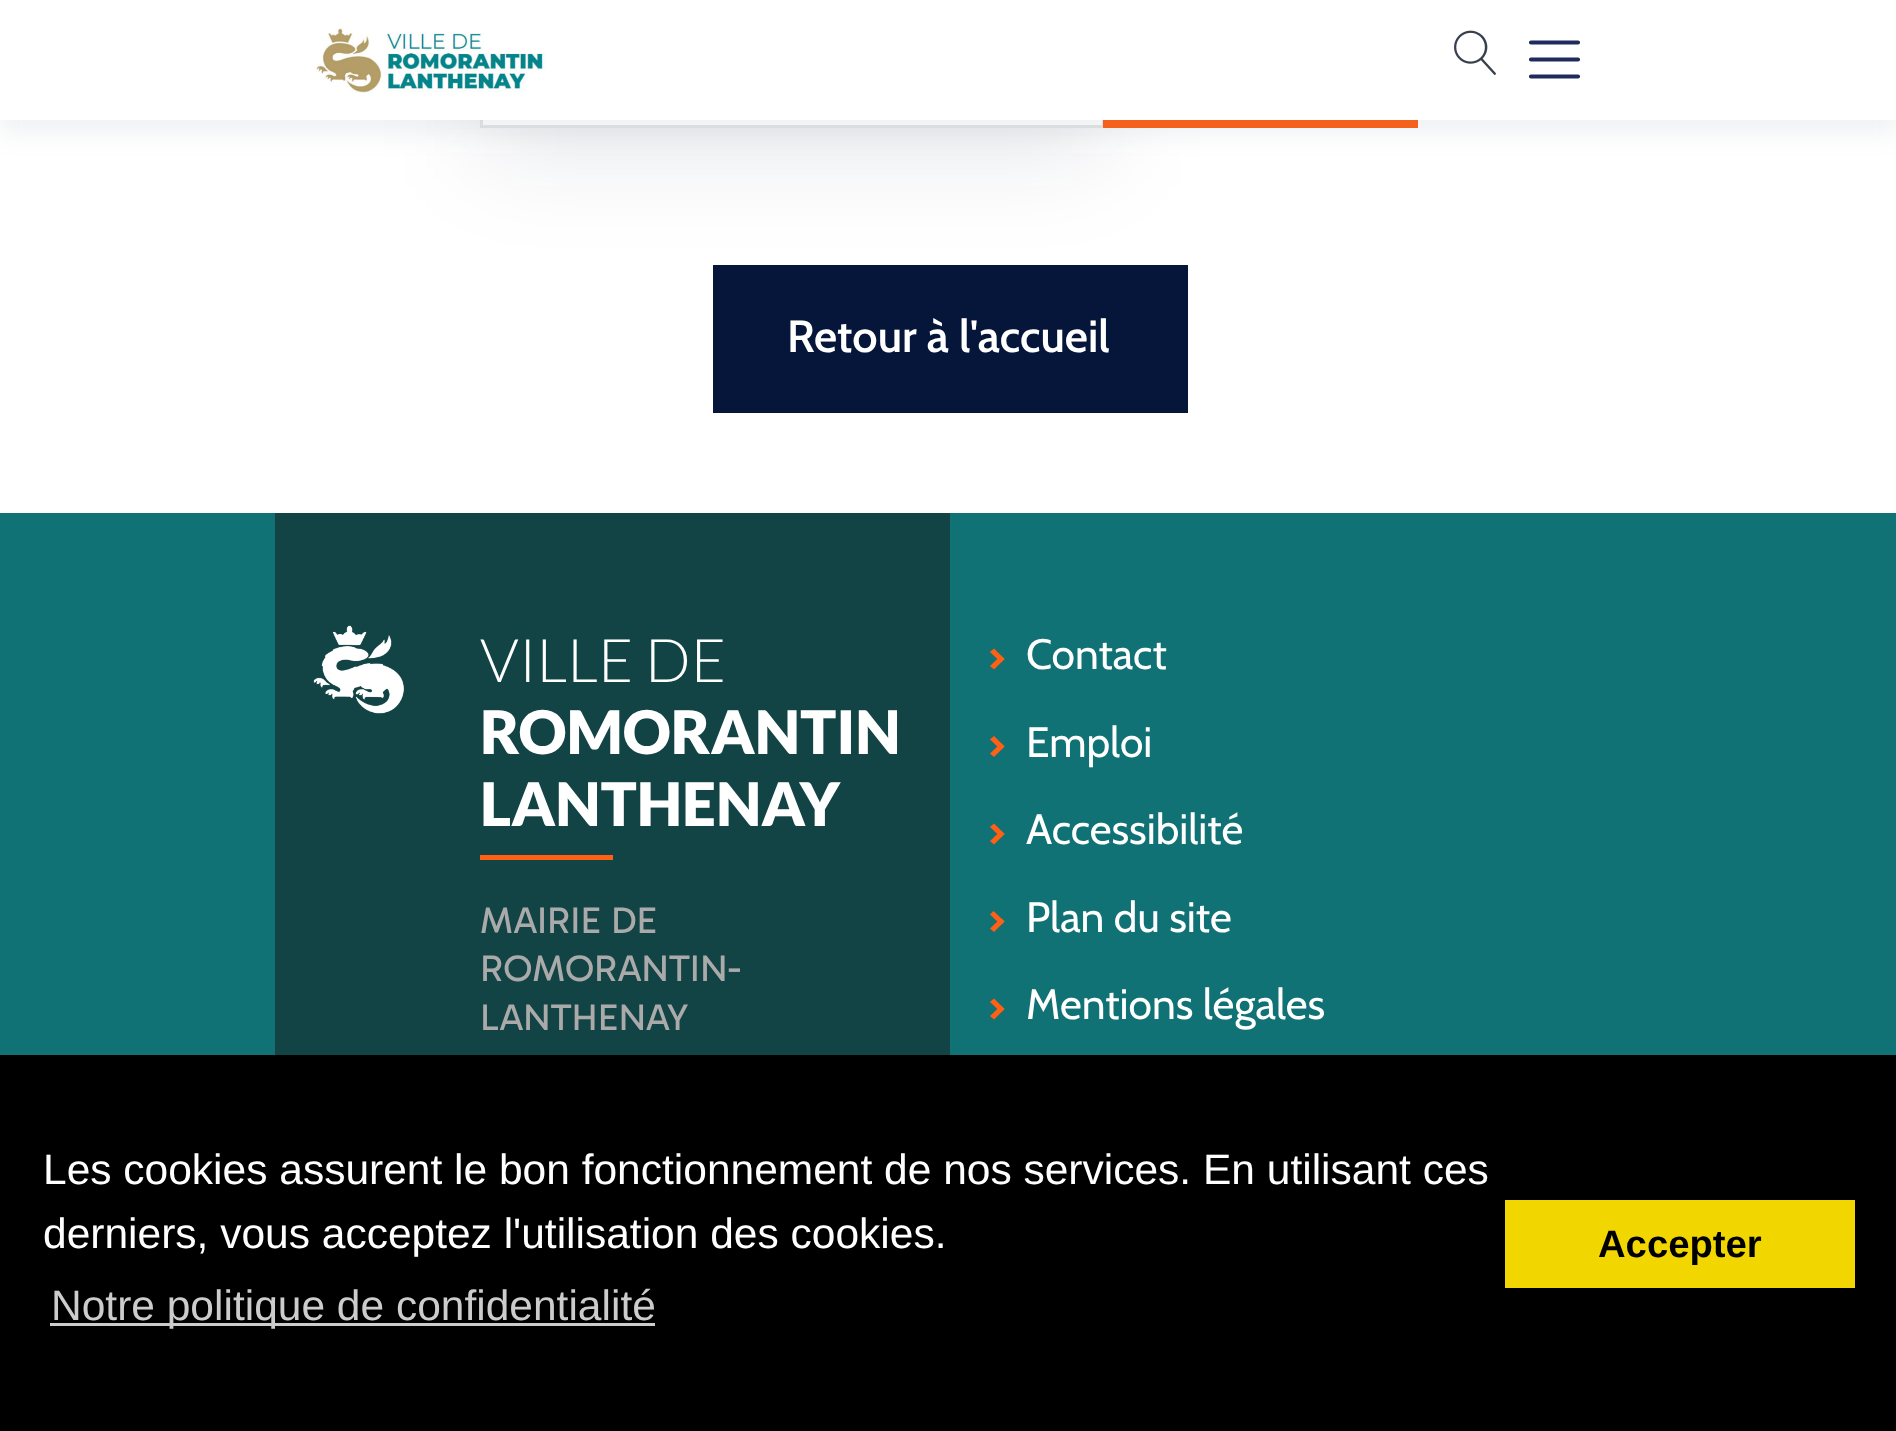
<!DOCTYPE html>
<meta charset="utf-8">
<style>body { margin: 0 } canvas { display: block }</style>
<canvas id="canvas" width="1896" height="1431"></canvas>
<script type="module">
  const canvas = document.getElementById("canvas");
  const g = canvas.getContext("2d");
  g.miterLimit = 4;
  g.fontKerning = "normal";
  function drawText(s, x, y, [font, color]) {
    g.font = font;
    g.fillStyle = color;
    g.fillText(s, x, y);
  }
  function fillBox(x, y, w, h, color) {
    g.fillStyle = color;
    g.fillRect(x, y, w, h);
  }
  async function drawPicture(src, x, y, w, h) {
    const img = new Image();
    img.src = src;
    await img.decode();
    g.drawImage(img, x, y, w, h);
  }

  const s1 = ["600 45px Cabin", "#FFFFFF"];
  const s2 = ["300 60px Lato", "#FFFFFF"];
  const s3 = ["900 60px Lato", "#FFFFFF"];
  const s4 = ["37.5px Gabarito", "#AAAAAA"];
  const s5 = ["42.5px Cabin", "#FFFFFF"];
  const s6 = ["42.5px Liberation Sans", "#FFFFFF"];
  const s7 = ["42.5px Liberation Sans", "#CCCCCC"];
  const s8 = ["bold 38.25px Liberation Sans", "#000000"];

  fillBox(0, 0, 1896, 1431, "#FFFFFF");
  g.save();
  g.beginPath();
  g.moveTo(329, 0);
  g.lineTo(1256, 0);
  g.lineTo(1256, 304);
  g.lineTo(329, 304);
  g.closePath();
  g.moveTo(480, -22);
  g.lineTo(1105, -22);
  g.lineTo(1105, 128);
  g.lineTo(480, 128);
  g.closePath();
  g.clip("evenodd");
  g.fillStyle = "rgba(6, 22, 58, 0.1)";
  g.filter = "blur(50px)";
  g.beginPath();
  g.rect(480, 3, 625, 150);
  g.fill();
  g.filter = "none";
  g.restore();
  g.strokeStyle = "#E5E5E5";
  g.lineWidth = 3;
  g.strokeRect(481.5, -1.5, 622, 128);
  fillBox(1103, 120, 315, 8, "#FF6014");
  g.fillStyle = "rgba(98, 113, 141, 0.1)";
  g.filter = "blur(12.5px)";
  g.beginPath();
  g.rect(0, 13, 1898, 120);
  g.fill();
  g.filter = "none";
  fillBox(0, 0, 1896, 120, "#FFFFFF");
  await drawPicture("pic1.png", 315, 28, 231, 65);
  await drawPicture("pic2.png", 1454, 30, 42, 45);
  g.beginPath();
  g.moveTo(1531, 42.5);
  g.lineTo(1578, 42.5);
  g.moveTo(1531, 59.5);
  g.lineTo(1578, 59.5);
  g.moveTo(1531, 76.5);
  g.lineTo(1578, 76.5);
  g.strokeStyle = "#202B5D";
  g.lineWidth = 4.2;
  g.lineCap = "round";
  g.stroke();
  fillBox(713, 265, 475, 148, "#06163A");
  drawText("Retour à l'accueil", 787, 352, s1);
  fillBox(0, 513, 1896, 542, "#107275");
  fillBox(275, 513, 675, 542, "#124345");
  await drawPicture("pic3.png", 313, 625, 91, 89);
  drawText("VILLE DE", 480, 682, s2);
  drawText("ROMORANTIN", 480, 754, s3);
  drawText("LANTHENAY", 480, 826, s3);
  fillBox(480, 855, 133, 5, "#FF6014");
  drawText("MAIRIE DE", 480, 933, s4);
  drawText("ROMORANTIN-", 480, 981, s4);
  drawText("LANTHENAY", 480, 1030, s4);
  g.fillStyle = "#FF6014";
  g.beginPath();
  g.moveTo(994, 648.5);
  g.lineTo(1004.5, 659);
  g.lineTo(1001, 662.5);
  g.lineTo(990, 652);
  g.closePath();
  g.fill();
  g.beginPath();
  g.moveTo(1001, 655.5);
  g.lineTo(1004.5, 659);
  g.lineTo(994, 669.5);
  g.lineTo(990, 666);
  g.closePath();
  g.fill();
  drawText("Contact", 1026, 669, s5);
  g.fillStyle = "#FF6014";
  g.beginPath();
  g.moveTo(994, 736);
  g.lineTo(1004.5, 746.5);
  g.lineTo(1001, 750);
  g.lineTo(990, 739.5);
  g.closePath();
  g.fill();
  g.beginPath();
  g.moveTo(1001, 743);
  g.lineTo(1004.5, 746.5);
  g.lineTo(994, 757);
  g.lineTo(990, 753.5);
  g.closePath();
  g.fill();
  drawText("Emploi", 1026, 757, s5);
  g.fillStyle = "#FF6014";
  g.beginPath();
  g.moveTo(994, 823.5);
  g.lineTo(1004.5, 834);
  g.lineTo(1001, 837.5);
  g.lineTo(990, 827);
  g.closePath();
  g.fill();
  g.beginPath();
  g.moveTo(1001, 830.5);
  g.lineTo(1004.5, 834);
  g.lineTo(994, 844.5);
  g.lineTo(990, 841);
  g.closePath();
  g.fill();
  drawText("Accessibilité", 1026, 844, s5);
  g.fillStyle = "#FF6014";
  g.beginPath();
  g.moveTo(993.5, 911);
  g.lineTo(1004.5, 921.5);
  g.lineTo(1001, 925);
  g.lineTo(990, 914.5);
  g.closePath();
  g.fill();
  g.beginPath();
  g.moveTo(1001, 918);
  g.lineTo(1004.5, 921.5);
  g.lineTo(994, 932);
  g.lineTo(990, 928.5);
  g.closePath();
  g.fill();
  drawText("Plan du site", 1026, 932, s5);
  g.fillStyle = "#FF6014";
  g.beginPath();
  g.moveTo(994, 998.5);
  g.lineTo(1004.5, 1009);
  g.lineTo(1001, 1012.5);
  g.lineTo(990, 1002);
  g.closePath();
  g.fill();
  g.beginPath();
  g.moveTo(1001, 1005.5);
  g.lineTo(1004.5, 1009);
  g.lineTo(994, 1019.5);
  g.lineTo(990, 1016);
  g.closePath();
  g.fill();
  drawText("Mentions légales", 1026, 1019, s5);
  fillBox(0, 1055, 1896, 376, "#000000");
  drawText("Les cookies assurent le bon fonctionnement de nos services. En utilisant ces", 43, 1184, s6);
  drawText("derniers, vous acceptez l'utilisation des cookies.", 43, 1248, s6);
  fillBox(50, 1323, 605, 3, "#CCCCCC");
  drawText("Notre politique de confidentialité", 51, 1320, s7);
  fillBox(1505, 1200, 350, 88, "#F1D600");
  drawText("Accepter", 1598, 1257, s8);
</script>
